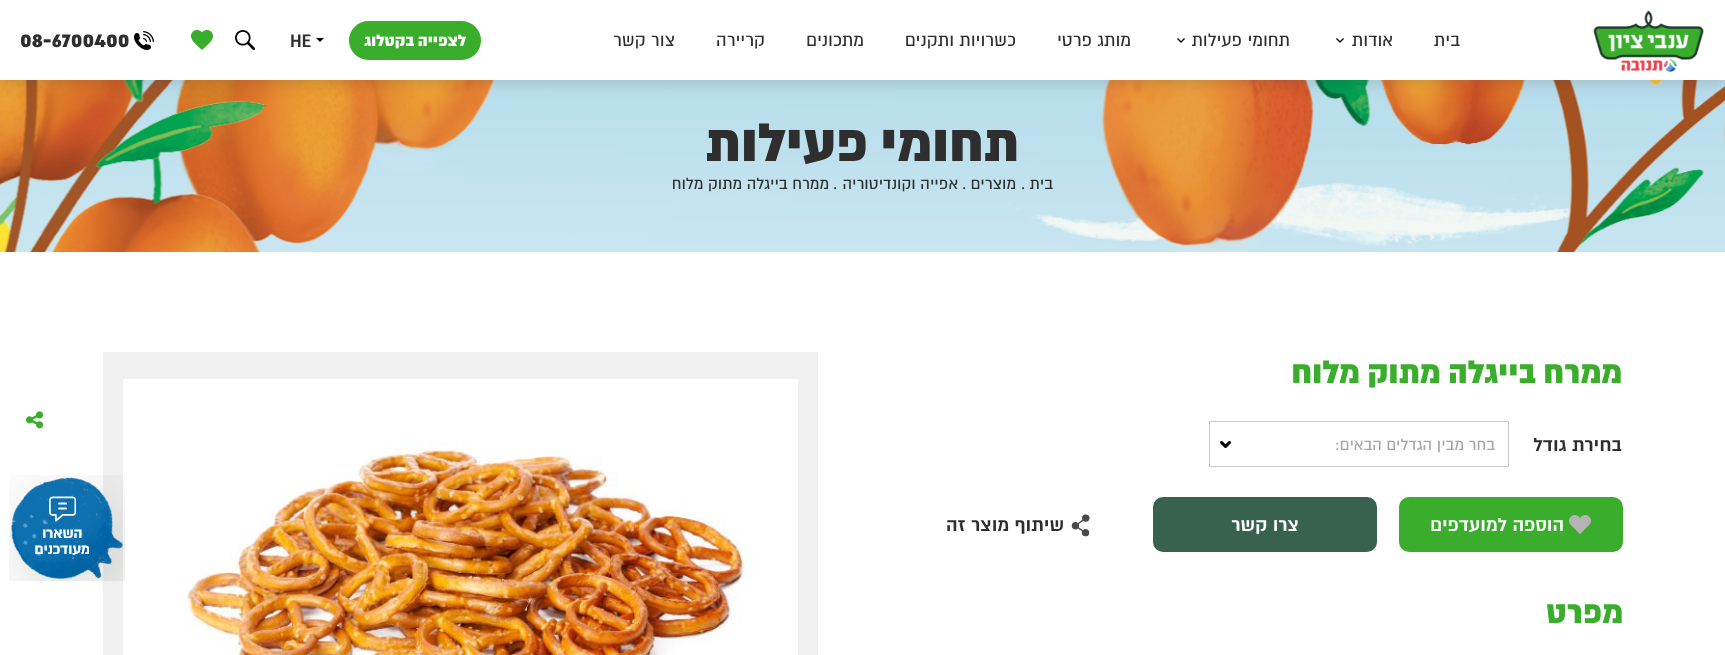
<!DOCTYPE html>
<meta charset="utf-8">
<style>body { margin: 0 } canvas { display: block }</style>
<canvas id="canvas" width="1725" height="655"></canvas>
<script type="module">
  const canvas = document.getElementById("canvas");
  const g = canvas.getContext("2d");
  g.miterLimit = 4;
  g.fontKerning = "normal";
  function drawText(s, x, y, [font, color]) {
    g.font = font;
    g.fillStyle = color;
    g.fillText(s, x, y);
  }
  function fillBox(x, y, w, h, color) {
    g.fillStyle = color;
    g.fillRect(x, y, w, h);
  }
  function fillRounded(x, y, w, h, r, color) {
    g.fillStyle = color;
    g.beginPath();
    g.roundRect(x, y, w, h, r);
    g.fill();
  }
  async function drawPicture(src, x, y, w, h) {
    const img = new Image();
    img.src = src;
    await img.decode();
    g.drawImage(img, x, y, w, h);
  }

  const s1 = ["20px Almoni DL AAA", "#2E2E2E"];
  const s2 = ["900 18px Almoni DL AAA", "#FFFFFF"];
  const s3 = ["bold 20px Almoni DL AAA", "#2E2E2E"];
  const s4 = ["900 24px Almoni DL AAA", "#2E2E2E"];
  const s5 = ["900 60px Almoni DL AAA", "#2E2E2E"];
  const s6 = ["18px Almoni DL AAA", "#2E2E2E"];
  const s7 = ["900 36px Almoni DL AAA", "#3AAD2C"];
  const s8 = ["bold 21px Almoni DL AAA", "#2E2E2E"];
  const s9 = ["18px Almoni DL AAA", "#A5A5A5"];
  const s10 = ["bold 21px Almoni DL AAA", "#FFFFFF"];

  fillBox(0, 0, 1725, 655, "#FFFFFF");
  await drawPicture("pic6.png", 0, 80, 1725, 172);
  g.fillStyle = "rgba(50, 50, 50, 0.2)";
  g.filter = "blur(7.5px)";
  g.beginPath();
  g.rect(0, 2, 1725, 80);
  g.fill();
  g.filter = "none";
  fillBox(0, 0, 1725, 80, "#FFFFFF");
  await drawPicture("pic1.png", 1593, 10, 111, 62);
  g.direction = "rtl";
  drawText("בית", 1460, 46, s1);
  await drawPicture("pic2.png", 1336, 38, 8, 5);
  drawText("אודות", 1393, 46, s1);
  await drawPicture("pic2.png", 1177, 38, 8, 5);
  drawText("תחומי פעילות", 1290, 46, s1);
  drawText("מותג פרטי", 1131, 46, s1);
  drawText("כשרויות ותקנים", 1016, 46, s1);
  drawText("מתכונים", 864, 46, s1);
  drawText("קריירה", 765, 46, s1);
  drawText("צור קשר", 675, 46, s1);
  fillRounded(349, 21, 132, 39, 19.5, "#3AAD2C");
  drawText("לצפייה בקטלוג", 466, 46, s2);
  g.fillStyle = "#000000";
  g.beginPath();
  g.moveTo(324, 38);
  g.lineTo(316, 38);
  g.lineTo(320, 42);
  g.closePath();
  g.fill();
  g.direction = "ltr";
  drawText("HE", 290, 47, s3);
  await drawPicture("pic3.png", 235, 30, 20, 20);
  await drawPicture("pic4.png", 191, 30, 22, 20);
  await drawPicture("pic5.png", 134, 31, 20, 19);
  drawText("08-6700400", 20, 47, s4);
  g.direction = "rtl";
  drawText("תחומי פעילות", 1019, 161, s5);
  drawText("בית", 1053, 189, s6);
  g.direction = "ltr";
  drawText(".", 1021, 189, s6);
  g.direction = "rtl";
  drawText("מוצרים", 1016, 189, s6);
  g.direction = "ltr";
  drawText(".", 962, 189, s6);
  g.direction = "rtl";
  drawText("אפייה וקונדיטוריה", 958, 189, s6);
  g.direction = "ltr";
  drawText(".", 833, 189, s6);
  g.direction = "rtl";
  drawText("ממרח בייגלה מתוק מלוח", 829, 189, s6);
  drawText("ממרח בייגלה מתוק מלוח", 1622, 383, s7);
  drawText("בחירת גודל", 1622, 451, s8);
  await drawPicture("pic7.png", 1220, 441, 11, 7);
  g.strokeStyle = "#C8C8C8";
  g.strokeRect(1209.5, 421.5, 299, 45);
  drawText("בחר מבין הגדלים הבאים:", 1495, 450, s9);
  fillRounded(1399, 497, 224, 55, 10, "#3AAD2C");
  await drawPicture("pic8.png", 1569, 515, 22, 19);
  drawText("הוספה למועדפים", 1564, 531, s10);
  fillRounded(1153, 497, 224, 55, 10, "#38624E");
  drawText("צרו קשר", 1299, 531, s10);
  await drawPicture("pic9.png", 1071, 514, 19, 23);
  drawText("שיתוף מוצר זה", 1064, 531, s8);
  drawText("מפרט", 1623, 623, s7);
  fillBox(103, 352, 715, 303, "#F0F0F0");
  await drawPicture("pic10.png", 123, 379, 675, 276);
  await drawPicture("pic11.png", 26, 411, 18, 18);
  await drawPicture("pic12.png", 9, 475, 116, 106);
</script>
